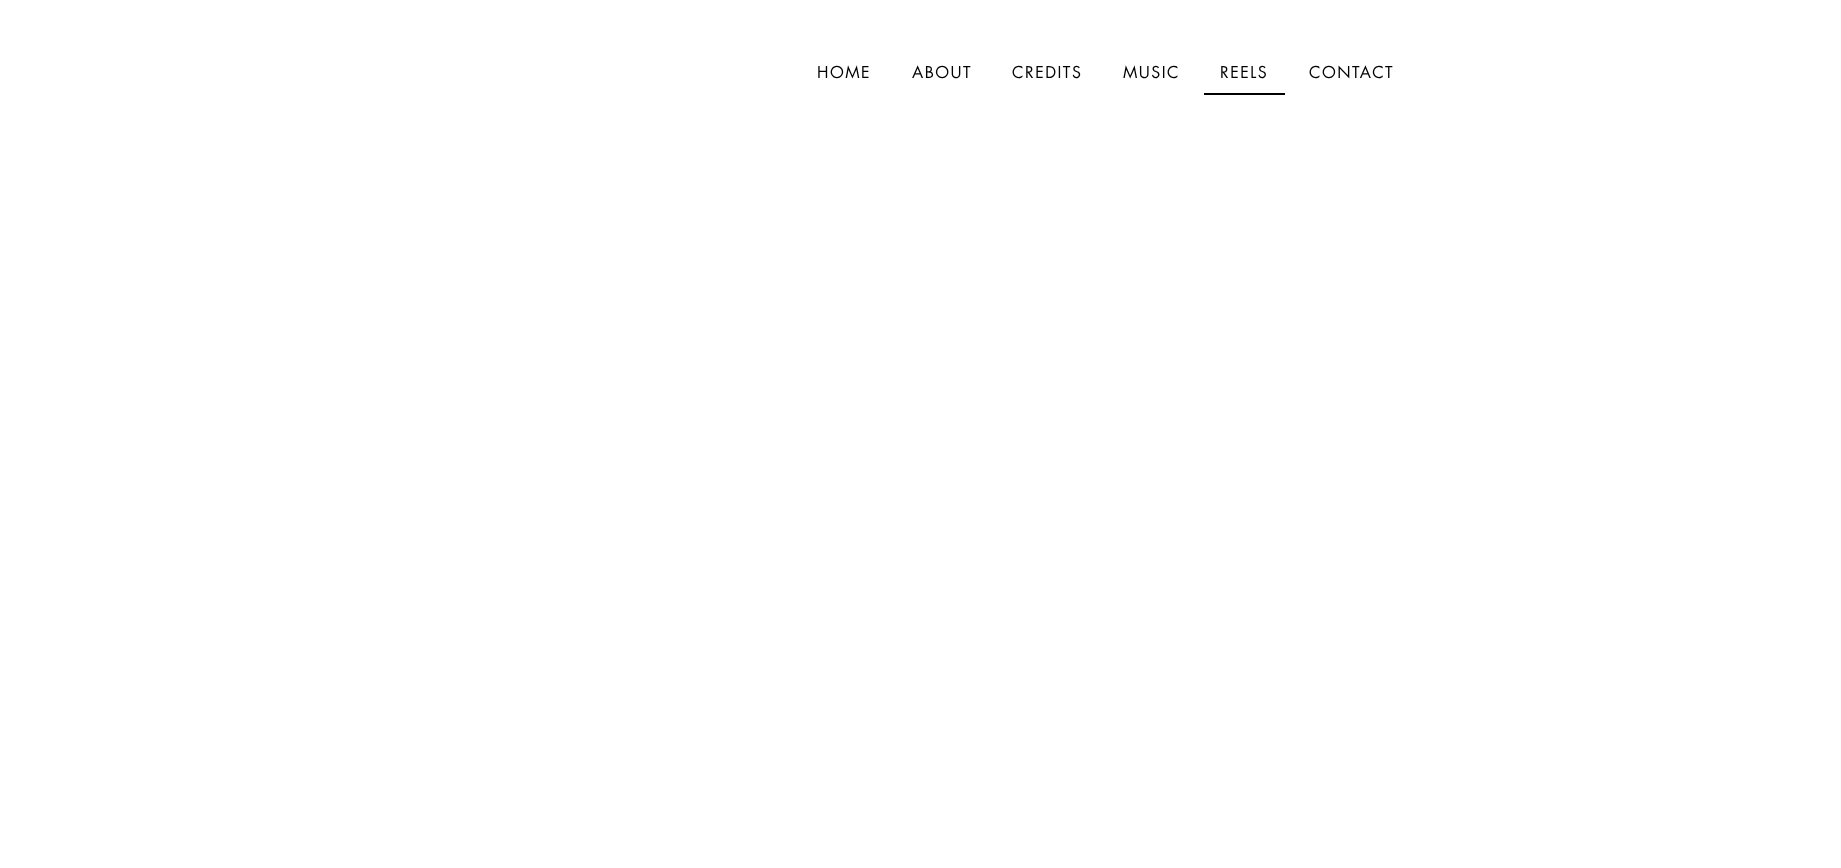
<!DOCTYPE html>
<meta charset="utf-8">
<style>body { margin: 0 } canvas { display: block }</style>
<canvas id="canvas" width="1841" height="868"></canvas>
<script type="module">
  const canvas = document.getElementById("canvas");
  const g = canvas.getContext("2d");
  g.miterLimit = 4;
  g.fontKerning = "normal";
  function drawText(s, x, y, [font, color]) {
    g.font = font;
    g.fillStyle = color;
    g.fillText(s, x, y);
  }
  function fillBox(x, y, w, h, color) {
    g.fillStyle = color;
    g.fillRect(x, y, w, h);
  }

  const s1 = ["16px futura", "#000000"];

  fillBox(0, 0, 1841, 868, "#FFFFFF");
  g.letterSpacing = "1.5px";
  drawText("HOME", 817, 78, s1);
  drawText("ABOUT", 912, 78, s1);
  drawText("CREDITS", 1012, 78, s1);
  drawText("MUSIC", 1123, 78, s1);
  fillBox(1204, 93, 81, 2, "#000000");
  drawText("REELS", 1220, 78, s1);
  drawText("CONTACT", 1309, 78, s1);
</script>
